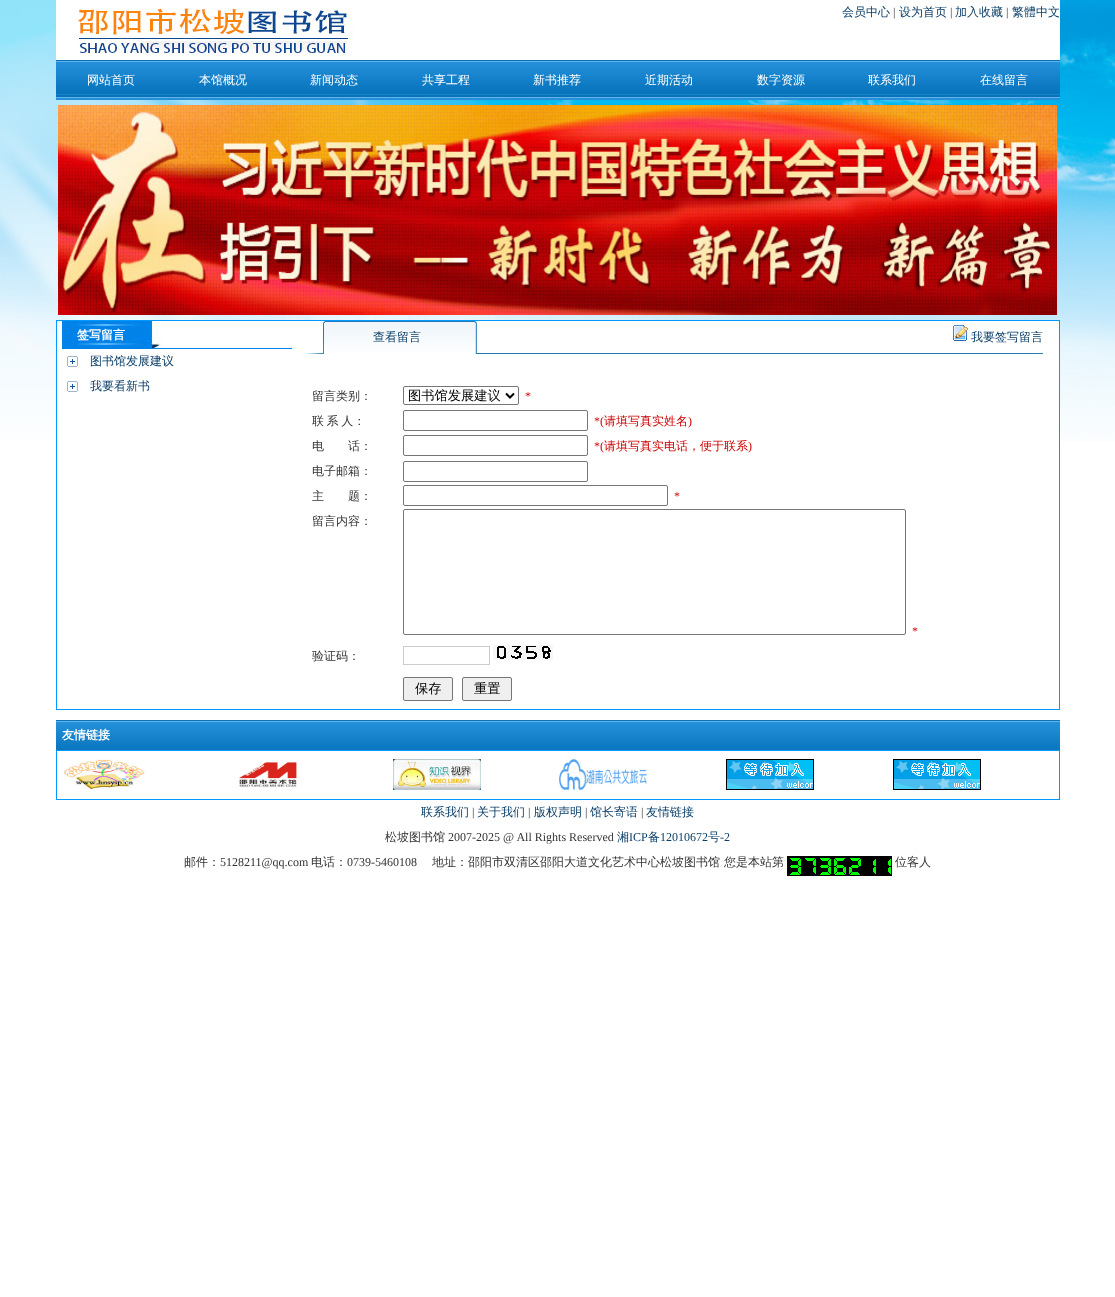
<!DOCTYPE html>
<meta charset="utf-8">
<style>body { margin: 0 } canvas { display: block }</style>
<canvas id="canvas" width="1115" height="1297"></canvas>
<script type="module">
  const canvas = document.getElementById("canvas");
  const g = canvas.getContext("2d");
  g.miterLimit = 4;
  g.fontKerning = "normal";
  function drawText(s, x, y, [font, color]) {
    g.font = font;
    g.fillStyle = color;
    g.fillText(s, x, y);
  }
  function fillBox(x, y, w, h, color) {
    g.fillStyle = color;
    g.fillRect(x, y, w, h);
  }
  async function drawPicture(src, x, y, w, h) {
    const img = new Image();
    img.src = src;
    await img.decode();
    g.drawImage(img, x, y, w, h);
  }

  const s1 = ["500 12px WenQuanYi Zen Hei", "#0B3E68"];
  const s2 = ["12px Liberation Serif", "#333333"];
  const s3 = ["500 12px WenQuanYi Zen Hei", "#FFFFFF"];
  const s4 = ["bold 12px WenQuanYi Zen Hei", "#FFFFFF"];
  const s5 = ["500 12px WenQuanYi Zen Hei", "#333333"];
  const s6 = ["500 13.25px WenQuanYi Zen Hei", "#000000"];
  const s7 = ["12px Liberation Serif", "#CC0000"];
  const s8 = ["500 12px WenQuanYi Zen Hei", "#CC0000"];
  const s9 = ["12px Liberation Serif", "#0B3E68"];

  fillBox(0, 0, 1115, 1297, "#FFFFFF");
  await drawPicture("pic1.png", 0, 0, 1115, 442);
  fillBox(56, 0, 1004, 60, "#FFFFFF");
  await drawPicture("pic2.png", 75, 8, 279, 48);
  drawText("会员中心", 842, 16, s1);
  drawText("|", 893, 16, s2);
  drawText("设为首页", 899, 16, s1);
  drawText("|", 950, 16, s2);
  drawText("加入收藏", 955, 16, s1);
  drawText("|", 1006, 16, s2);
  drawText("繁體中文", 1012, 16, s1);
  await drawPicture("pic3.png", 56, 60, 1004, 40);
  drawText("网站首页", 87, 84, s3);
  drawText("本馆概况", 199, 84, s3);
  drawText("新闻动态", 310, 84, s3);
  drawText("共享工程", 422, 84, s3);
  drawText("新书推荐", 533, 84, s3);
  drawText("近期活动", 645, 84, s3);
  drawText("数字资源", 757, 84, s3);
  drawText("联系我们", 868, 84, s3);
  drawText("在线留言", 980, 84, s3);
  await drawPicture("pic4.png", 58, 105, 999, 210);
  fillBox(57, 321, 1002, 121, "#FFFFFF");
  g.strokeStyle = "#0099FF";
  g.strokeRect(56.5, 320.5, 1003, 389);
  await drawPicture("pic5.png", 57, 321, 240, 28);
  drawText("签写留言", 77, 339, s4);
  await drawPicture("pic6.png", 67, 356, 11, 11);
  drawText("图书馆发展建议", 90, 365, s1);
  await drawPicture("pic6.png", 67, 381, 11, 11);
  drawText("我要看新书", 90, 390, s1);
  await drawPicture("pic7.png", 302, 321, 741, 33);
  drawText("查看留言", 373, 341, s1);
  await drawPicture("pic8.png", 953, 325, 15, 16);
  drawText("我要签写留言", 971, 341, s1);
  drawText("留言类别：", 312, 400, s5);
  g.beginPath();
  g.roundRect(403.5, 386.5, 115, 18, 1.5);
  g.strokeStyle = "#767676";
  g.stroke();
  g.beginPath();
  g.moveTo(506, 393.5);
  g.lineTo(510, 397.5);
  g.lineTo(514, 393.5);
  g.strokeStyle = "#000000";
  g.lineWidth = 2;
  g.stroke();
  drawText("图书馆发展建议", 408, 400, s6);
  drawText("*", 525, 400, s7);
  g.wordSpacing = "-1px";
  drawText("联 系 人：", 312, 425, s5);
  g.beginPath();
  g.roundRect(403.5, 410.5, 184, 20, 1.5);
  g.strokeStyle = "#767676";
  g.lineWidth = 1;
  g.stroke();
  g.wordSpacing = "0px";
  drawText("*(", 594, 425, s7);
  drawText("请填写真实姓名", 604, 425, s8);
  drawText(")", 688, 425, s7);
  drawText("电　　话：", 312, 450, s5);
  g.beginPath();
  g.roundRect(403.5, 435.5, 184, 20, 1.5);
  g.stroke();
  drawText("*(", 594, 450, s7);
  drawText("请填写真实电话，便于联系", 604, 450, s8);
  drawText(")", 748, 450, s7);
  drawText("电子邮箱：", 312, 475, s5);
  g.beginPath();
  g.roundRect(403.5, 461.5, 184, 20, 1.5);
  g.stroke();
  drawText("主　　题：", 312, 500, s5);
  g.beginPath();
  g.roundRect(403.5, 485.5, 264, 20, 1.5);
  g.stroke();
  drawText("*", 674, 500, s7);
  drawText("留言内容：", 312, 525, s5);
  g.beginPath();
  g.roundRect(403.5, 509.5, 502, 125, 1.5);
  g.stroke();
  drawText("*", 912, 635, s7);
  drawText("验证码：", 312, 660, s5);
  g.strokeStyle = "#CCCCCC";
  g.strokeRect(403.5, 646.5, 86, 18);
  await drawPicture("pic9.png", 493, 645, 60, 15);
  g.fillStyle = "#EFEFEF";
  g.beginPath();
  g.roundRect(403.5, 677.5, 49, 23, 1.5);
  g.fill();
  g.strokeStyle = "#767676";
  g.stroke();
  drawText("保存", 415, 693, s6);
  g.fillStyle = "#EFEFEF";
  g.beginPath();
  g.roundRect(462.5, 677.5, 49, 23, 1.5);
  g.fill();
  g.stroke();
  drawText("重置", 474, 693, s6);
  await drawPicture("pic10.png", 56, 720, 1004, 30);
  drawText("友情链接", 62, 739, s4);
  g.strokeStyle = "#0099FF";
  g.strokeRect(56.5, 750.5, 1003, 49);
  await drawPicture("pic11.png", 64, 759, 81, 31);
  await drawPicture("pic12.png", 239, 762, 58, 25);
  await drawPicture("pic13.png", 393, 759, 88, 31);
  await drawPicture("pic14.png", 559, 759, 88, 31);
  await drawPicture("pic15.png", 726, 759, 88, 31);
  await drawPicture("pic15.png", 893, 759, 88, 31);
  drawText("联系我们", 421, 816, s1);
  drawText("|", 472, 816, s2);
  drawText("关于我们", 477, 816, s1);
  drawText("|", 528, 816, s2);
  drawText("版权声明", 534, 816, s1);
  drawText("|", 585, 816, s2);
  drawText("馆长寄语", 590, 816, s1);
  drawText("|", 641, 816, s2);
  drawText("友情链接", 646, 816, s1);
  drawText("松坡图书馆", 385, 841, s5);
  drawText("2007-2025 @ All Rights Reserved", 448, 841, s2);
  drawText("湘", 617, 841, s1);
  drawText("ICP", 629, 841, s9);
  drawText("备", 648, 841, s1);
  drawText("12010672", 660, 841, s9);
  drawText("号", 708, 841, s1);
  drawText("-2", 720, 841, s9);
  drawText("邮件：", 184, 866, s5);
  drawText("5128211@qq.com", 220, 866, s2);
  drawText("电话：", 311, 866, s5);
  drawText("0739-5460108", 347, 866, s2);
  drawText("地址：邵阳市双清区邵阳大道文化艺术中心松坡图书馆", 432, 866, s5);
  drawText("您是本站第", 724, 866, s5);
  await drawPicture("pic16.png", 787, 856, 15, 20);
  await drawPicture("pic17.png", 802, 856, 15, 20);
  await drawPicture("pic16.png", 817, 856, 15, 20);
  await drawPicture("pic18.png", 832, 856, 15, 20);
  await drawPicture("pic19.png", 847, 856, 15, 20);
  await drawPicture("pic20.png", 862, 856, 15, 20);
  await drawPicture("pic20.png", 877, 856, 15, 20);
  drawText("位客人", 895, 866, s5);
</script>
